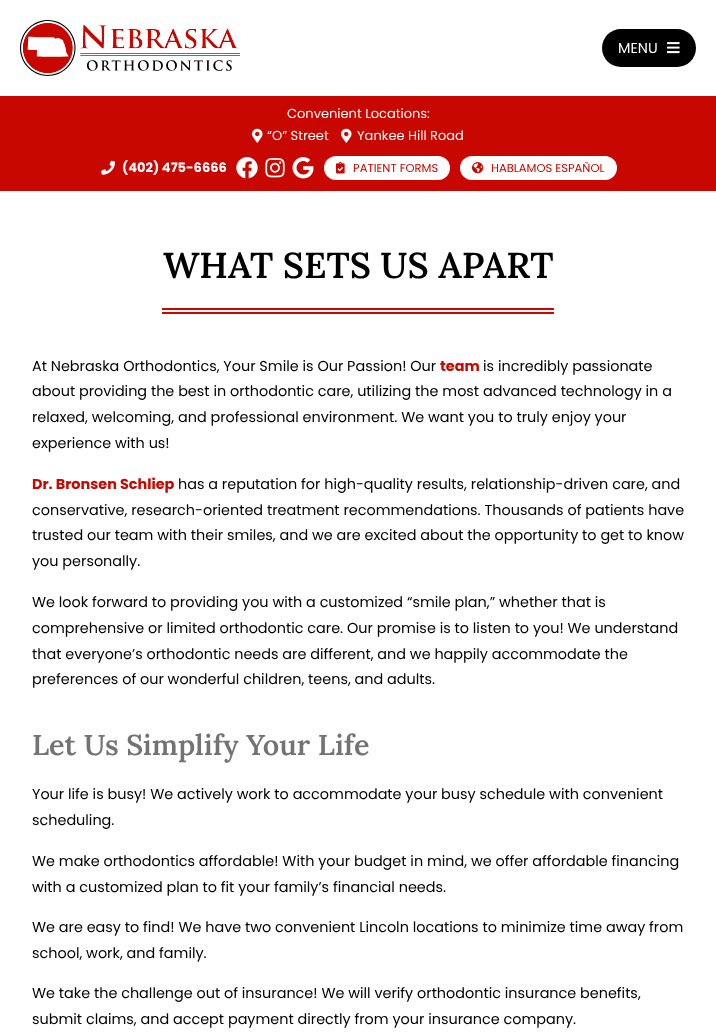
<!DOCTYPE html>
<meta charset="utf-8">
<style>body { margin: 0 } canvas { display: block }</style>
<canvas id="canvas" width="716" height="1032"></canvas>
<script type="module">
  const canvas = document.getElementById("canvas");
  const g = canvas.getContext("2d");
  g.miterLimit = 4;
  g.fontKerning = "normal";
  function drawText(s, x, y, [font, color]) {
    g.font = font;
    g.fillStyle = color;
    g.fillText(s, x, y);
  }
  function fillBox(x, y, w, h, color) {
    g.fillStyle = color;
    g.fillRect(x, y, w, h);
  }
  function fillRounded(x, y, w, h, r, color) {
    g.fillStyle = color;
    g.beginPath();
    g.roundRect(x, y, w, h, r);
    g.fill();
  }
  async function drawPicture(src, x, y, w, h) {
    const img = new Image();
    img.src = src;
    await img.decode();
    g.drawImage(img, x, y, w, h);
  }

  const s1 = ["14.4px Poppins", "#FFFFFF"];
  const s2 = ["13px Poppins", "#FFFFFF"];
  const s3 = ["bold 13px Poppins", "#FFFFFF"];
  const s4 = ["11.5px Poppins", "#C80700"];
  const s5 = ["600 36px Lora", "#000000"];
  const s6 = ["14.4px Poppins", "#000000"];
  const s7 = ["bold 14.4px Poppins", "#C80700"];
  const s8 = ["600 28.75px Lora", "#737373"];

  fillBox(0, 0, 716, 1032, "#FFFFFF");
  await drawPicture("pic1.png", 20, 20, 220, 56);
  fillRounded(602, 29, 94, 38, 19, "#000000");
  drawText("MENU", 618, 53, s1);
  await drawPicture("pic2.png", 667, 42, 13, 12);
  fillBox(0, 96, 716, 95, "#C80700");
  drawText("Convenient Locations:", 287, 118, s2);
  await drawPicture("pic3.png", 252, 128, 11, 15);
  drawText("“O” Street", 267, 140, s2);
  await drawPicture("pic3.png", 341, 128, 11, 15);
  drawText("Yankee Hill Road", 357, 140, s2);
  await drawPicture("pic4.png", 101, 160, 14, 15);
  drawText("(402) 475-6666", 122, 172, s3);
  await drawPicture("pic5.png", 236, 157, 22, 22);
  await drawPicture("pic6.png", 265, 158, 20, 20);
  await drawPicture("pic7.png", 292, 157, 22, 22);
  fillRounded(324, 156, 126, 24, 12, "#FFFFFF");
  await drawPicture("pic8.png", 336, 161, 9, 13);
  drawText("PATIENT FORMS", 353, 172, s4);
  fillRounded(460, 156, 157, 24, 12, "#FFFFFF");
  await drawPicture("pic9.png", 472, 162, 12, 12);
  drawText("HABLAMOS ESPAÑOL", 491, 172, s4);
  drawText("WHAT SETS US APART", 163, 278, s5);
  fillBox(162, 308, 392, 2, "#C80700");
  fillBox(162, 312, 392, 2, "#C80700");
  drawText("At Nebraska Orthodontics, Your Smile is Our Passion! Our", 32, 371, s6);
  drawText("team", 440, 371, s7);
  drawText("is incredibly passionate", 483, 371, s6);
  drawText("about providing the best in orthodontic care, utilizing the most advanced technology in a", 32, 396, s6);
  drawText("relaxed, welcoming, and professional environment. We want you to truly enjoy your", 32, 422, s6);
  drawText("experience with us!", 32, 448, s6);
  drawText("Dr. Bronsen Schliep", 32, 489, s7);
  drawText("has a reputation for high-quality results, relationship-driven care, and", 178, 489, s6);
  drawText("conservative, research-oriented treatment recommendations. Thousands of patients have", 32, 515, s6);
  drawText("trusted our team with their smiles, and we are excited about the opportunity to get to know", 32, 540, s6);
  drawText("you personally.", 32, 566, s6);
  drawText("We look forward to providing you with a customized “smile plan,” whether that is", 32, 607, s6);
  drawText("comprehensive or limited orthodontic care. Our promise is to listen to you! We understand", 32, 633, s6);
  drawText("that everyone’s orthodontic needs are different, and we happily accommodate the", 32, 659, s6);
  drawText("preferences of our wonderful children, teens, and adults.", 32, 684, s6);
  drawText("Let Us Simplify Your Life", 32, 755, s8);
  drawText("Your life is busy! We actively work to accommodate your busy schedule with convenient", 32, 799, s6);
  drawText("scheduling.", 32, 825, s6);
  drawText("We make orthodontics affordable! With your budget in mind, we offer affordable financing", 32, 866, s6);
  drawText("with a customized plan to fit your family’s financial needs.", 32, 892, s6);
  drawText("We are easy to find! We have two convenient Lincoln locations to minimize time away from", 32, 932, s6);
  drawText("school, work, and family.", 32, 958, s6);
  drawText("We take the challenge out of insurance! We will verify orthodontic insurance benefits,", 32, 998, s6);
  drawText("submit claims, and accept payment directly from your insurance company.", 32, 1024, s6);
</script>
